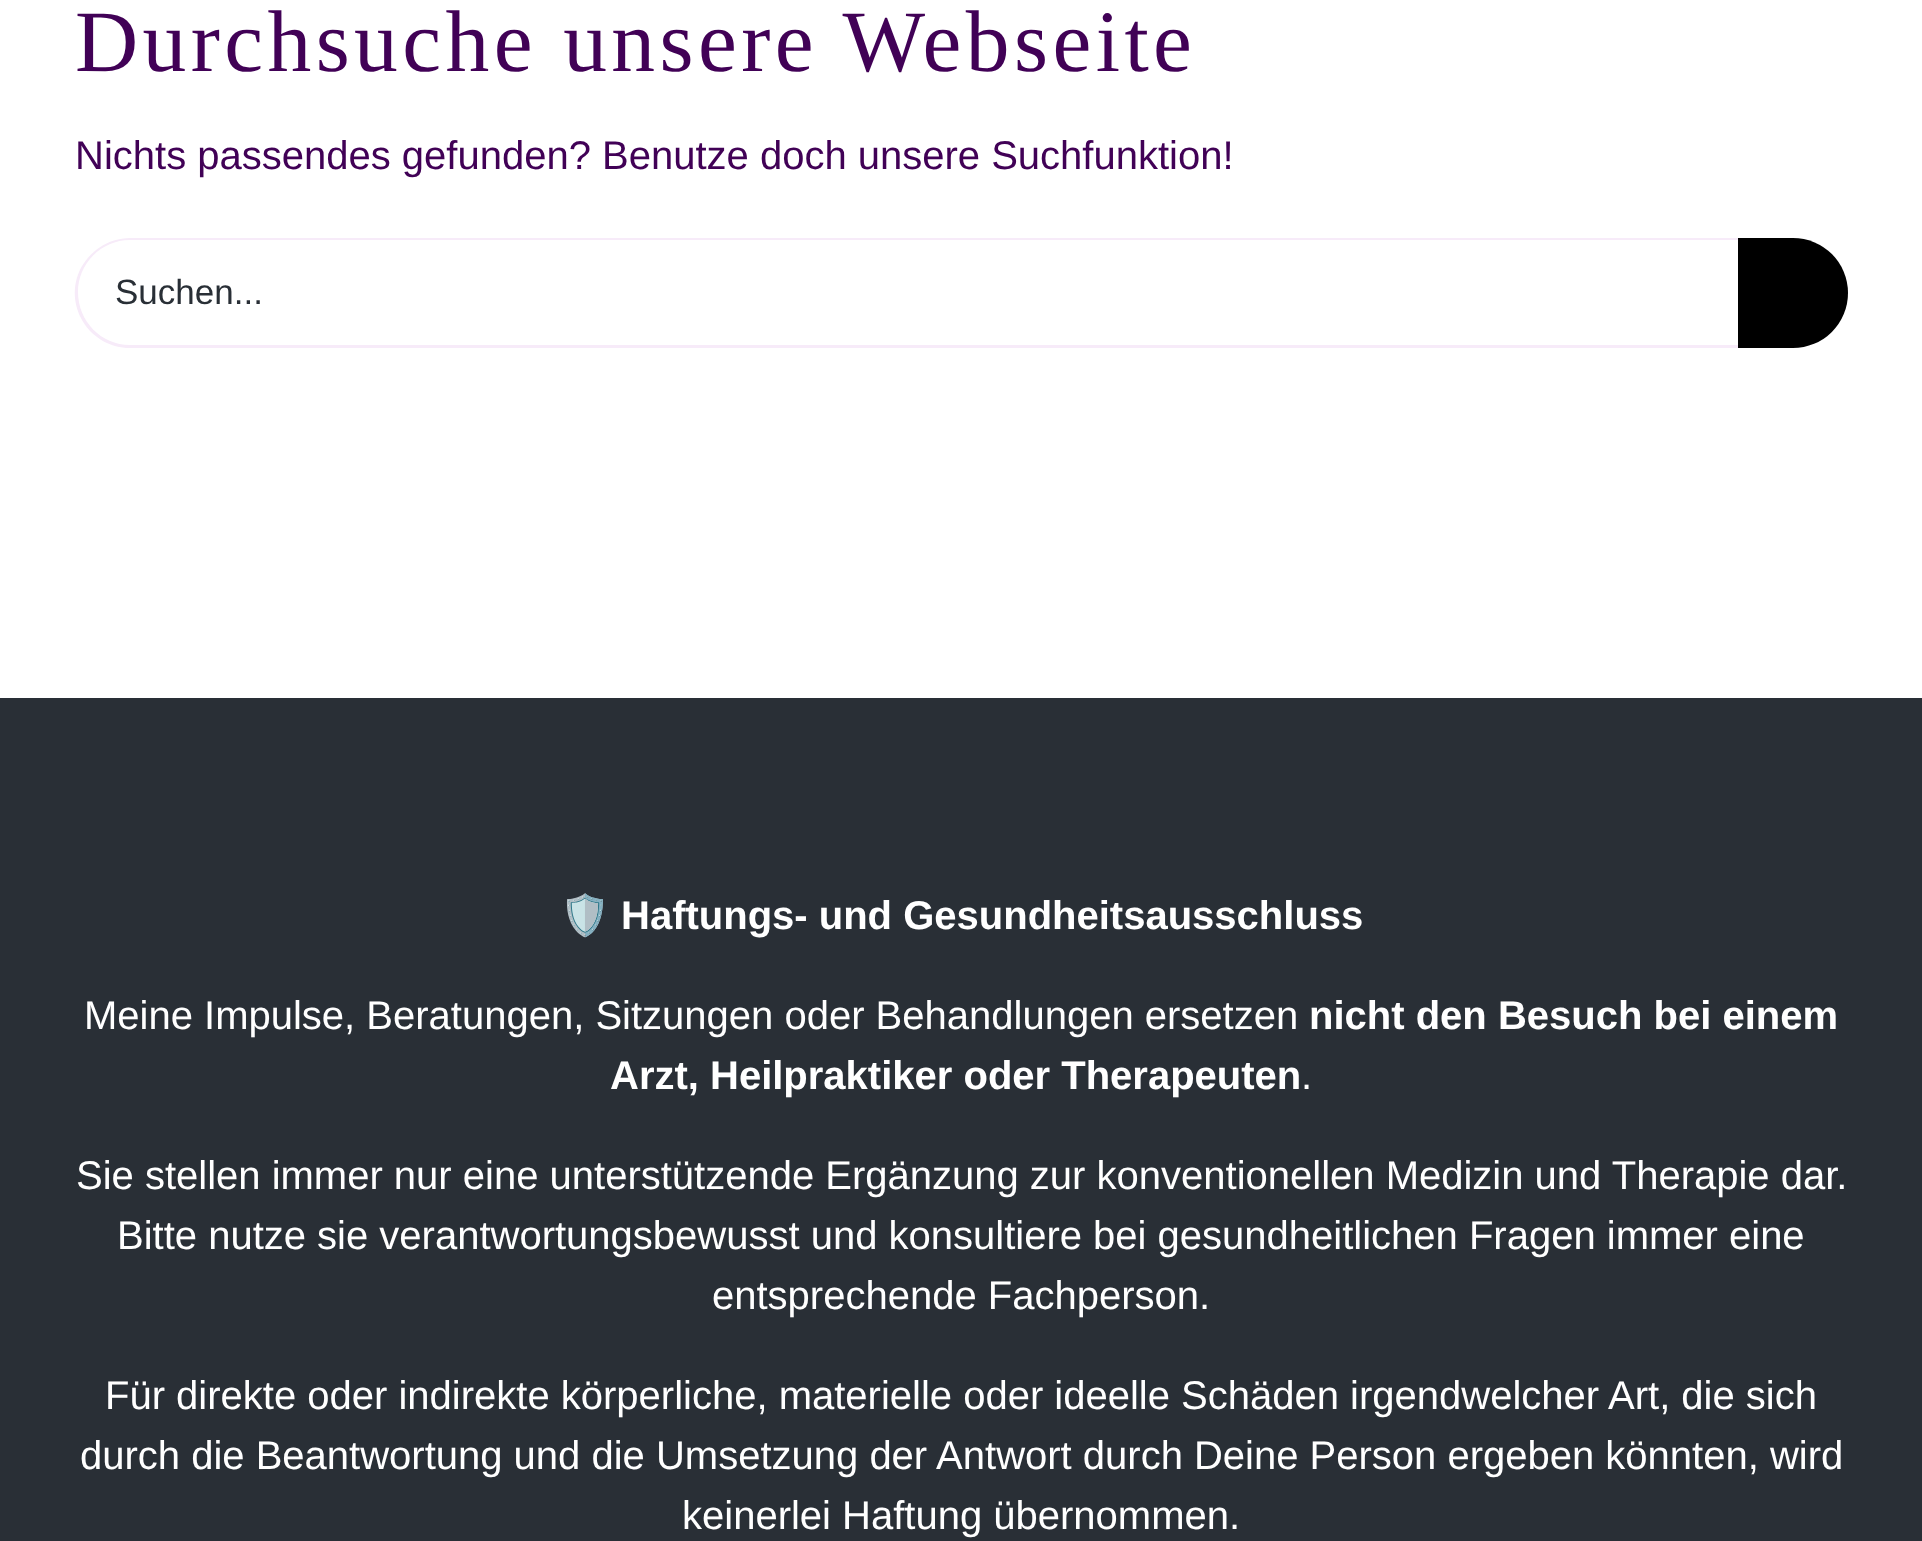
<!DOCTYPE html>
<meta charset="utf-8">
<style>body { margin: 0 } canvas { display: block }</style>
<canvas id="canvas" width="1922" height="1541"></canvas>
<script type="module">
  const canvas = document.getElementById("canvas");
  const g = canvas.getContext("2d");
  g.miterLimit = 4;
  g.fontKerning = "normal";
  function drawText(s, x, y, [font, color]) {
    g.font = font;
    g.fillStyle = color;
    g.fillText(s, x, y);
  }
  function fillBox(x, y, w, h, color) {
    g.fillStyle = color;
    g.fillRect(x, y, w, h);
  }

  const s1 = ["87.5px Liberation Serif", "#410156"];
  const s2 = ["40px Liberation Sans", "#410156"];
  const s3 = ["35px Liberation Sans", "#292F36"];
  const s4 = ["40px Noto Color Emoji", "#FFFFFF"];
  const s5 = ["bold 40px Liberation Sans", "#FFFFFF"];
  const s6 = ["40px Liberation Sans", "#FFFFFF"];

  fillBox(0, 0, 1922, 1541, "#FFFFFF");
  g.letterSpacing = "4.4px";
  drawText("Durchsuche unsere Webseite", 75, 71, s1);
  g.letterSpacing = "0px";
  drawText("Nichts passendes gefunden? Benutze doch unsere Suchfunktion!", 75, 169, s2);
  g.fillStyle = "#F7EBF9";
  g.beginPath();
  g.moveTo(130, 238);
  g.bezierCurveTo(108, 238, 88, 252, 79, 272);
  g.bezierCurveTo(64, 308, 91, 348, 130, 348);
  g.lineTo(1738, 348);
  g.lineTo(1738, 345);
  g.lineTo(130, 345);
  g.bezierCurveTo(101, 345, 78, 321, 78, 292);
  g.bezierCurveTo(78, 264, 101, 240, 130, 240);
  g.lineTo(1738, 240);
  g.lineTo(1738, 238);
  g.closePath();
  g.fill();
  drawText("Suchen...", 115, 304, s3);
  g.fillStyle = "#000000";
  g.beginPath();
  g.roundRect(1738, 238, 110, 110, [0, 55, 55, 0]);
  g.fill();
  fillBox(0, 698, 1922, 843, "#292F36");
  drawText("🛡️", 560, 929, s4);
  drawText("Haftungs- und Gesundheitsausschluss", 621, 929, s5);
  drawText("Meine Impulse, Beratungen, Sitzungen oder Behandlungen ersetzen", 84, 1029, s6);
  drawText("nicht den Besuch bei einem", 1309, 1029, s5);
  drawText("Arzt, Heilpraktiker oder Therapeuten", 610, 1089, s5);
  drawText(".", 1301, 1089, s6);
  drawText("Sie stellen immer nur eine unterstützende Ergänzung zur konventionellen Medizin und Therapie dar.", 76, 1189, s6);
  drawText("Bitte nutze sie verantwortungsbewusst und konsultiere bei gesundheitlichen Fragen immer eine", 117, 1249, s6);
  drawText("entsprechende Fachperson.", 712, 1309, s6);
  drawText("Für direkte oder indirekte körperliche, materielle oder ideelle Schäden irgendwelcher Art, die sich", 105, 1409, s6);
  drawText("durch die Beantwortung und die Umsetzung der Antwort durch Deine Person ergeben könnten, wird", 80, 1469, s6);
  drawText("keinerlei Haftung übernommen.", 682, 1529, s6);
</script>
